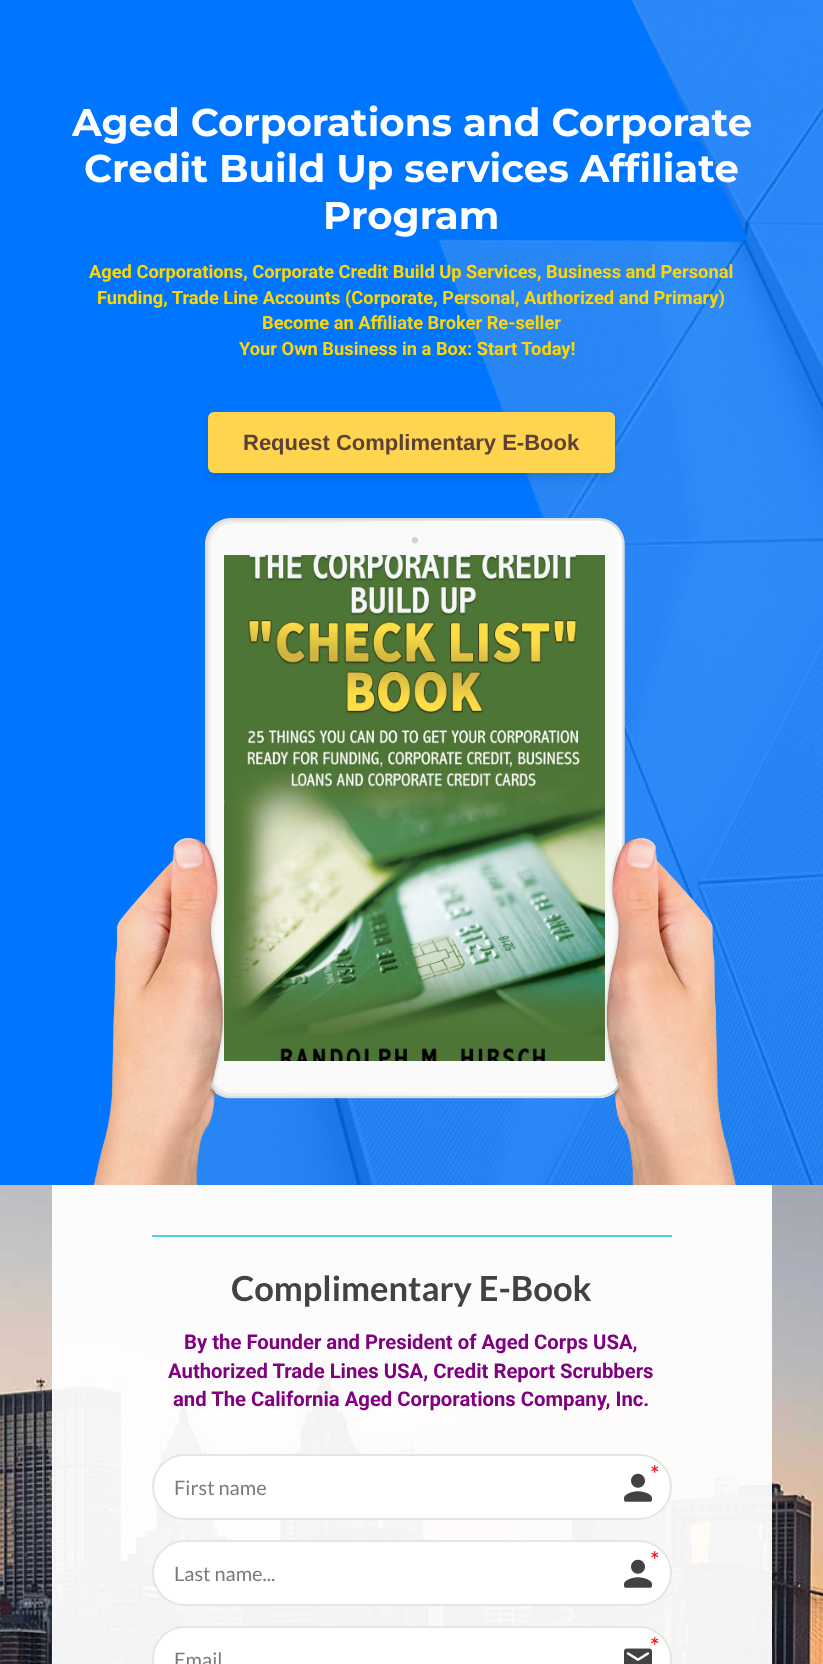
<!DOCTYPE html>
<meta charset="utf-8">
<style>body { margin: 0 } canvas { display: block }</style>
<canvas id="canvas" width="823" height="1664"></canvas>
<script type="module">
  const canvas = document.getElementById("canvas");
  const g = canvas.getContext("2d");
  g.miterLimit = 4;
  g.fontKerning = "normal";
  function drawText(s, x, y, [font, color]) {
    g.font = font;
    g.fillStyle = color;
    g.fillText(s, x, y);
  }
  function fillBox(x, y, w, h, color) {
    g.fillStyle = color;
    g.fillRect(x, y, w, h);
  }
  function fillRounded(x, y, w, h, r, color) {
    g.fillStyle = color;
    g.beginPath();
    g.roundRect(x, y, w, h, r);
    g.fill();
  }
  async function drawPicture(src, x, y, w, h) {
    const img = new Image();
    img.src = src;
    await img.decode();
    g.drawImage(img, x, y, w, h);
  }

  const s1 = ["bold 38.7px Montserrat", "#FFFFFF"];
  const s2 = ["bold 18.3px Roboto", "#FFD700"];
  const s3 = ["bold 22px Liberation Sans", "#5D4037"];
  const s4 = ["bold 34.5px Lato", "#424242"];
  const s5 = ["bold 20.3px Roboto", "#800080"];
  const s6 = ["24px Lato", "#FF0000"];
  const s7 = ["20px Lato", "#7B7B7B"];

  fillBox(0, 0, 823, 1664, "#0075FF");
  await drawPicture("pic1.png", 196, 0, 627, 1185);
  drawText("Aged Corporations and Corporate", 72, 136, s1);
  drawText("Credit Build Up services Affiliate", 84, 182, s1);
  drawText("Program", 323, 229, s1);
  drawText("Aged Corporations, Corporate Credit Build Up Services, Business and Personal", 89, 278, s2);
  drawText("Funding, Trade Line Accounts (Corporate, Personal, Authorized and Primary)", 97, 304, s2);
  drawText("Become an Affiliate Broker Re-seller", 262, 329, s2);
  drawText("Your Own Business in a Box: Start Today!", 239, 355, s2);
  g.fillStyle = "rgba(0, 0, 0, 0.1)";
  g.filter = "blur(5px)";
  g.beginPath();
  g.roundRect(208, 417, 407, 61, 6);
  g.fill();
  g.filter = "none";
  fillRounded(208, 412, 407, 61, 6, "#FFD54F");
  drawText("Request Complimentary E-Book", 243, 450, s3);
  await drawPicture("pic2.png", 93, 518, 643, 667);
  await drawPicture("pic3.png", 224, 555, 381, 506);
  await drawPicture("pic4.png", 0, 1185, 823, 479);
  fillBox(52, 1185, 720, 479, "rgba(255, 255, 255, 0.95)");
  fillBox(152, 1235, 520, 2, "#4DD0E1");
  drawText("Complimentary E-Book", 231, 1301, s4);
  drawText("By the Founder and President of Aged Corps USA,", 184, 1349, s5);
  drawText("Authorized Trade Lines USA, Credit Report Scrubbers", 168, 1378, s5);
  drawText("and The California Aged Corporations Company, Inc.", 173, 1406, s5);
  fillRounded(152, 1454, 520, 66, 33, "#FFFFFF");
  g.beginPath();
  g.roundRect(153, 1455, 518, 64, 32);
  g.strokeStyle = "rgba(0, 0, 0, 0.1)";
  g.lineWidth = 2;
  g.stroke();
  drawText("*", 650, 1483, s6);
  drawText("First name", 174, 1495, s7);
  await drawPicture("pic5.png", 624, 1473, 28, 29);
  fillRounded(152, 1540, 520, 66, 33, "#FFFFFF");
  g.beginPath();
  g.roundRect(153, 1541, 518, 64, 32);
  g.stroke();
  drawText("*", 650, 1569, s6);
  drawText("Last name...", 174, 1581, s7);
  await drawPicture("pic5.png", 624, 1559, 28, 29);
  fillRounded(152, 1626, 520, 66, 33, "#FFFFFF");
  g.beginPath();
  g.roundRect(153, 1627, 518, 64, 32);
  g.stroke();
  drawText("*", 650, 1655, s6);
  drawText("Email", 174, 1667, s7);
  await drawPicture("pic6.png", 624, 1648, 28, 16);
</script>
